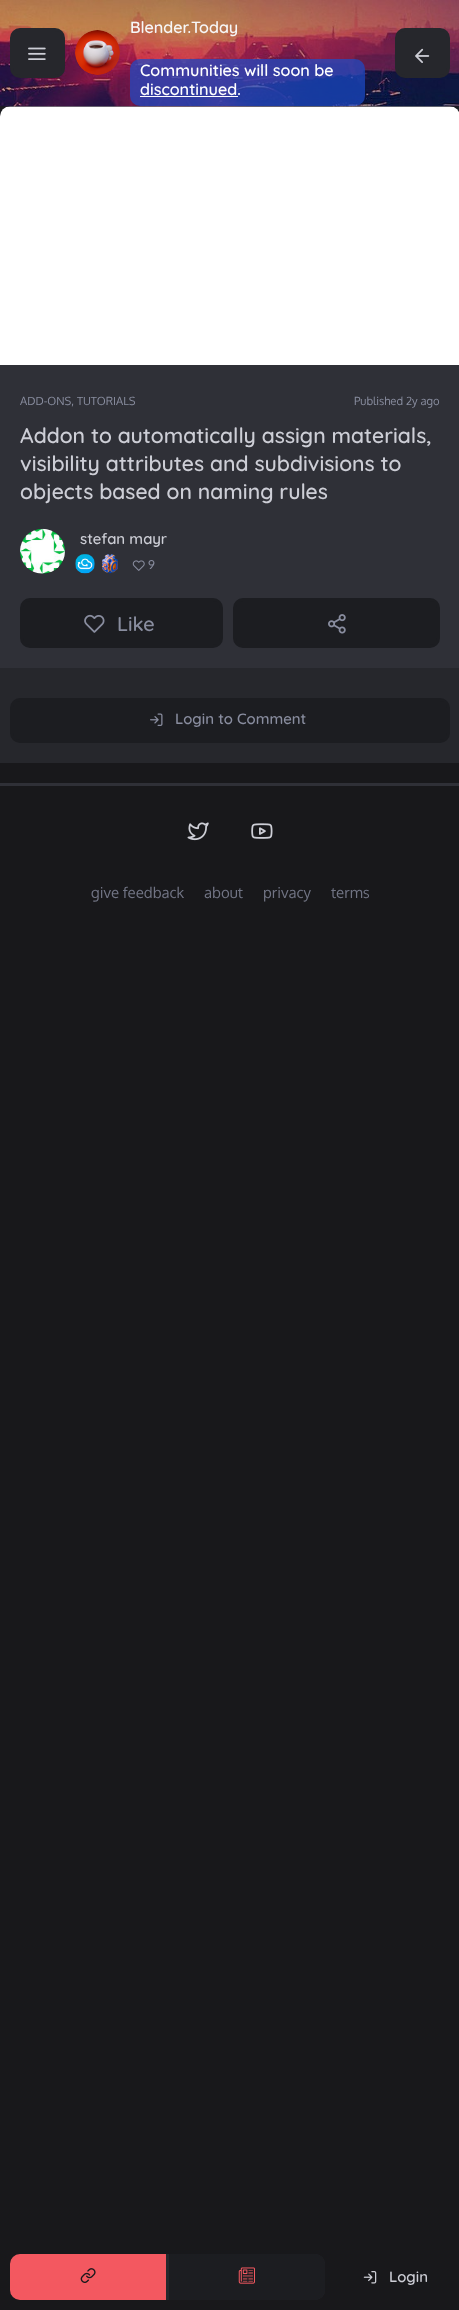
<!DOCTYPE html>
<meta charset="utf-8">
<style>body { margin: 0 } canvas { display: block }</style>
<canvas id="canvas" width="459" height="2310"></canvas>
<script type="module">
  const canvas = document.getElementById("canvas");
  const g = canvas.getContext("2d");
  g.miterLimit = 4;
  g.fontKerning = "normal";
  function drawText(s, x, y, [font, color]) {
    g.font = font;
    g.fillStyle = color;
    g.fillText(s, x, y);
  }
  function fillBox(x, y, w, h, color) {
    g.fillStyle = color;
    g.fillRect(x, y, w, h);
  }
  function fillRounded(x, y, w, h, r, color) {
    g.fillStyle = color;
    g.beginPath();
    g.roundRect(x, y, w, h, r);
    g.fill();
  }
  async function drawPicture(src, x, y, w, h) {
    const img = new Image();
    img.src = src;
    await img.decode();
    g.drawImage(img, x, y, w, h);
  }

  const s1 = ["500 16.25px Quicksand", "#F7F7F8"];
  const s2 = ["500 16.25px Quicksand", "#FFFFFF"];
  const s3 = ["500 15px Quicksand", "#CDCED6"];
  const s4 = ["11.25px Oxygen", "#898D9F"];
  const s5 = ["500 21.25px Quicksand", "#CDCED6"];
  const s6 = ["12px Oxygen", "#898D9F"];
  const s7 = ["500 20px Quicksand", "#898D9F"];
  const s8 = ["500 15px Quicksand", "#898D9F"];
  const s9 = ["15px Oxygen", "#717484"];

  fillBox(0, 0, 459, 2310, "#18181B");
  fillBox(0, 106, 459, 11, "#1C1D21");
  await drawPicture("pic8.png", 0, 106, 459, 259);
  await drawPicture("pic1.png", 0, 0, 459, 107);
  g.fillStyle = "#26272C";
  g.beginPath();
  g.roundRect(11.5, 29.5, 52, 47, 8.5);
  g.fill();
  g.strokeStyle = "#26272C";
  g.lineWidth = 3;
  g.stroke();
  await drawPicture("pic2.png", 28, 47, 18, 13);
  await drawPicture("pic3.png", 75, 30, 45, 45);
  drawText("Blender.Today", 130, 33, s1);
  fillRounded(130, 59, 235, 47, 10, "rgba(29, 75, 201, 0.7)");
  drawText("Communities will soon be", 140, 76, s2);
  drawText("discontinued.", 140, 95, s2);
  fillBox(140, 96, 98, 1, "#FFFFFF");
  g.fillStyle = "#26272C";
  g.beginPath();
  g.roundRect(396.5, 29.5, 52, 47, 8.5);
  g.fill();
  g.stroke();
  await drawPicture("pic4.png", 415, 48, 15, 15);
  fillRounded(10, 2254, 315, 46, 10, "#26272C");
  g.fillStyle = "#F35860";
  g.beginPath();
  g.roundRect(11.5, 2255.5, 153, 43, [8.5, 0, 0, 8.5]);
  g.fill();
  g.strokeStyle = "#F35860";
  g.stroke();
  await drawPicture("pic5.png", 80, 2268, 16, 15);
  g.fillStyle = "#1C1D21";
  g.beginPath();
  g.roundRect(169, 2254, 156, 46, [0, 10, 10, 0]);
  g.fill();
  await drawPicture("pic6.png", 238, 2267, 17, 17);
  await drawPicture("pic7.png", 363, 2271, 14, 13);
  drawText("Login", 389, 2282, s3);
  fillBox(0, 365, 459, 303, "#2F3037");
  drawText("ADD-ONS, TUTORIALS", 20, 405, s4);
  drawText("Published 2y ago", 354, 405, s4);
  drawText("Addon to automatically assign materials,", 20, 443, s5);
  drawText("visibility attributes and subdivisions to", 20, 471, s5);
  drawText("objects based on naming rules", 20, 499, s5);
  g.fillStyle = "#1C1D21";
  g.beginPath();
  g.arc(42.5, 551.5, 22.5, 0, Math.PI * 2);
  g.fill();
  await drawPicture("pic9.png", 20, 528, 45, 46);
  drawText("stefan mayr", 80, 544, s3);
  await drawPicture("pic10.png", 75, 554, 20, 20);
  await drawPicture("pic11.png", 102, 554, 16, 20);
  await drawPicture("pic12.png", 132, 560, 13, 11);
  drawText("9", 148, 569, s6);
  g.fillStyle = "#1C1D21";
  g.beginPath();
  g.roundRect(21.5, 599.5, 200, 47, 8.5);
  g.fill();
  g.strokeStyle = "#1C1D21";
  g.stroke();
  await drawPicture("pic13.png", 84, 614, 21, 19);
  drawText("Like", 117, 631, s7);
  g.fillStyle = "#1C1D21";
  g.beginPath();
  g.roundRect(234.5, 599.5, 204, 47, 8.5);
  g.fill();
  g.stroke();
  await drawPicture("pic14.png", 328, 614, 18, 20);
  fillBox(0, 668, 459, 95, "#26272C");
  g.fillStyle = "#1C1D21";
  g.beginPath();
  g.roundRect(11.5, 699.5, 437, 42, 8.5);
  g.fill();
  g.stroke();
  await drawPicture("pic15.png", 150, 713, 13, 13);
  drawText("Login to Comment", 175, 724, s8);
  fillBox(0, 783, 459, 3, "#2F3037");
  await drawPicture("pic16.png", 187, 822, 22, 19);
  await drawPicture("pic17.png", 251, 823, 22, 16);
  drawText("give feedback", 91, 898, s9);
  drawText("about", 204, 898, s9);
  drawText("privacy", 263, 898, s9);
  drawText("terms", 331, 898, s9);
</script>
